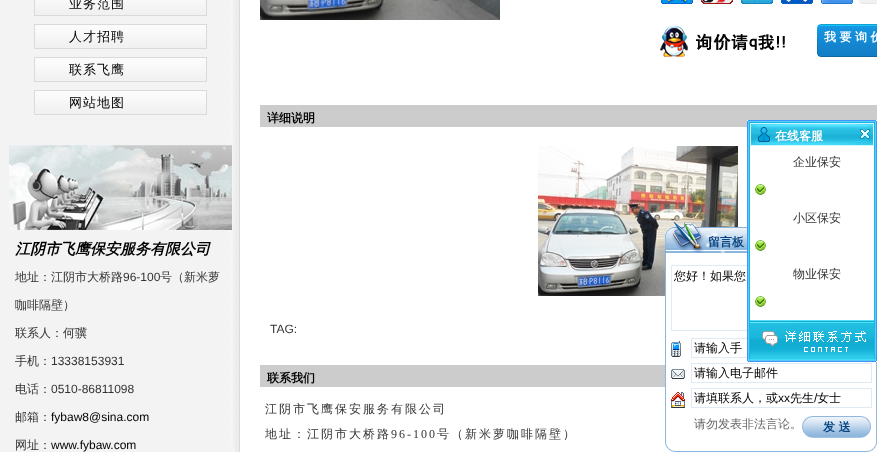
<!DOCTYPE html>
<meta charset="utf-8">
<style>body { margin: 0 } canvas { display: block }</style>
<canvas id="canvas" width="877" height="452"></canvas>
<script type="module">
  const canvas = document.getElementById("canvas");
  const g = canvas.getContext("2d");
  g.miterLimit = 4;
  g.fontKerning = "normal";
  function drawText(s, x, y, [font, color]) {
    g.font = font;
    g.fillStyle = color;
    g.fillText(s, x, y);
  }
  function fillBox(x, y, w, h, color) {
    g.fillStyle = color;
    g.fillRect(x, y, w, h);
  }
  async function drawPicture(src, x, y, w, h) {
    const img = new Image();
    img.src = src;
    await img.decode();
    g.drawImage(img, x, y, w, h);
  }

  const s1 = ["500 13px WenQuanYi Zen Hei", "#000000"];
  const s2 = ["italic bold 15px WenQuanYi Zen Hei", "#000000"];
  const s3 = ["500 12px WenQuanYi Zen Hei", "#333333"];
  const s4 = ["12px Liberation Sans", "#333333"];
  const s5 = ["12px Liberation Sans", "#000000"];
  const s6 = ["bold 12px WenQuanYi Zen Hei", "#FFFFFF"];
  const s7 = ["bold 12px WenQuanYi Zen Hei", "#000000"];
  const s8 = ["12px Liberation Serif", "#333333"];
  const s9 = ["bold 12px WenQuanYi Zen Hei", "#06437F"];
  const s10 = ["500 12px WenQuanYi Zen Hei", "#000000"];
  const s11 = ["500 12px WenQuanYi Zen Hei", "#666666"];

  fillBox(0, 0, 877, 452, "#FFFFFF");
  await drawPicture("pic1.png", 0, 0, 240, 452);
  await drawPicture("pic2.png", 34, 0, 173, 16);
  g.letterSpacing = "1px";
  drawText("业务范围", 69, 8, s1);
  await drawPicture("pic3.png", 34, 24, 173, 25);
  drawText("人才招聘", 69, 41, s1);
  await drawPicture("pic3.png", 34, 57, 173, 25);
  drawText("联系飞鹰", 69, 74, s1);
  await drawPicture("pic3.png", 34, 90, 173, 25);
  drawText("网站地图", 69, 107, s1);
  await drawPicture("pic4.png", 9, 145, 223, 85);
  g.letterSpacing = "0px";
  drawText("江阴市飞鹰保安服务有限公司", 15, 254, s2);
  drawText("地址：江阴市大桥路", 15, 281, s3);
  drawText("96-100", 123, 281, s4);
  drawText("号（新米萝", 160, 281, s3);
  drawText("咖啡隔壁）", 15, 309, s3);
  drawText("联系人：何骥", 15, 337, s3);
  drawText("手机：", 15, 365, s3);
  drawText("13338153931", 51, 365, s4);
  drawText("电话：", 15, 393, s3);
  drawText("0510-86811098", 51, 393, s4);
  drawText("邮箱：", 15, 421, s3);
  drawText("fybaw8@sina.com", 51, 421, s5);
  drawText("网址：", 15, 449, s3);
  drawText("www.fybaw.com", 51, 449, s5);
  await drawPicture("pic5.png", 260, 0, 240, 20);
  await drawPicture("pic6.png", 661, 0, 32, 4);
  await drawPicture("pic7.png", 701, 0, 32, 4);
  await drawPicture("pic8.png", 741, 0, 32, 4);
  await drawPicture("pic9.png", 781, 0, 32, 4);
  await drawPicture("pic10.png", 821, 0, 32, 4);
  await drawPicture("pic11.png", 859, 0, 18, 4);
  await drawPicture("pic12.png", 660, 26, 125, 31);
  await drawPicture("pic13.png", 817, 24, 60, 33);
  g.letterSpacing = "3.5px";
  drawText("我要询价", 824, 41, s6);
  fillBox(260, 105, 617, 22, "#CCCCCC");
  g.letterSpacing = "0px";
  drawText("详细说明", 267, 122, s7);
  await drawPicture("pic14.png", 538, 146, 200, 150);
  drawText("TAG:", 270, 333, s4);
  fillBox(260, 365, 405, 22, "#CCCCCC");
  drawText("联系我们", 267, 382, s7);
  g.letterSpacing = "2px";
  drawText("江阴市飞鹰保安服务有限公司", 265, 413, s3);
  drawText("地址：江阴市大桥路", 265, 438, s3);
  drawText("96-100", 391, 438, s8);
  drawText("号（新米萝咖啡隔壁）", 437, 438, s3);
  await drawPicture("pic15.png", 747, 120, 130, 26);
  g.letterSpacing = "0px";
  drawText("在线客服", 775, 140, s6);
  await drawPicture("pic16.png", 860, 129, 10, 10);
  await drawPicture("pic17.png", 747, 146, 130, 3);
  await drawPicture("pic22.png", 665, 253, 212, 199);
  g.strokeStyle = "#DFEAF5";
  g.strokeRect(671.5, 265.5, 199, 65);
  await drawPicture("pic18.png", 747, 149, 130, 168);
  drawText("企业保安", 793, 166, s3);
  await drawPicture("pic19.png", 755, 184, 11, 11);
  drawText("小区保安", 793, 222, s3);
  await drawPicture("pic19.png", 755, 240, 11, 11);
  drawText("物业保安", 793, 278, s3);
  await drawPicture("pic19.png", 755, 296, 11, 11);
  await drawPicture("pic17.png", 747, 317, 130, 3);
  g.strokeRect(691.5, 338.5, 180, 19);
  await drawPicture("pic20.png", 747, 320, 130, 42);
  await drawPicture("pic21.png", 665, 222, 82, 31);
  drawText("留言板", 708, 246, s9);
  drawText("您好！如果您", 674, 280, s10);
  await drawPicture("pic23.png", 671, 341, 10, 16);
  drawText("请输入手", 694, 352, s10);
  await drawPicture("pic24.png", 671, 369, 14, 10);
  g.strokeRect(691.5, 363.5, 180, 19);
  drawText("请输入电子邮件", 694, 377, s10);
  await drawPicture("pic25.png", 671, 392, 14, 16);
  g.strokeRect(691.5, 388.5, 180, 19);
  drawText("请填联系人，或", 694, 402, s10);
  drawText("xx", 778, 402, s5);
  drawText("先生", 790, 402, s10);
  drawText("/", 814, 402, s5);
  drawText("女士", 817, 402, s10);
  drawText("请勿发表非法言论。", 694, 428, s11);
  await drawPicture("pic26.png", 802, 416, 69, 22);
  drawText("发 送", 823, 431, s9);
</script>
